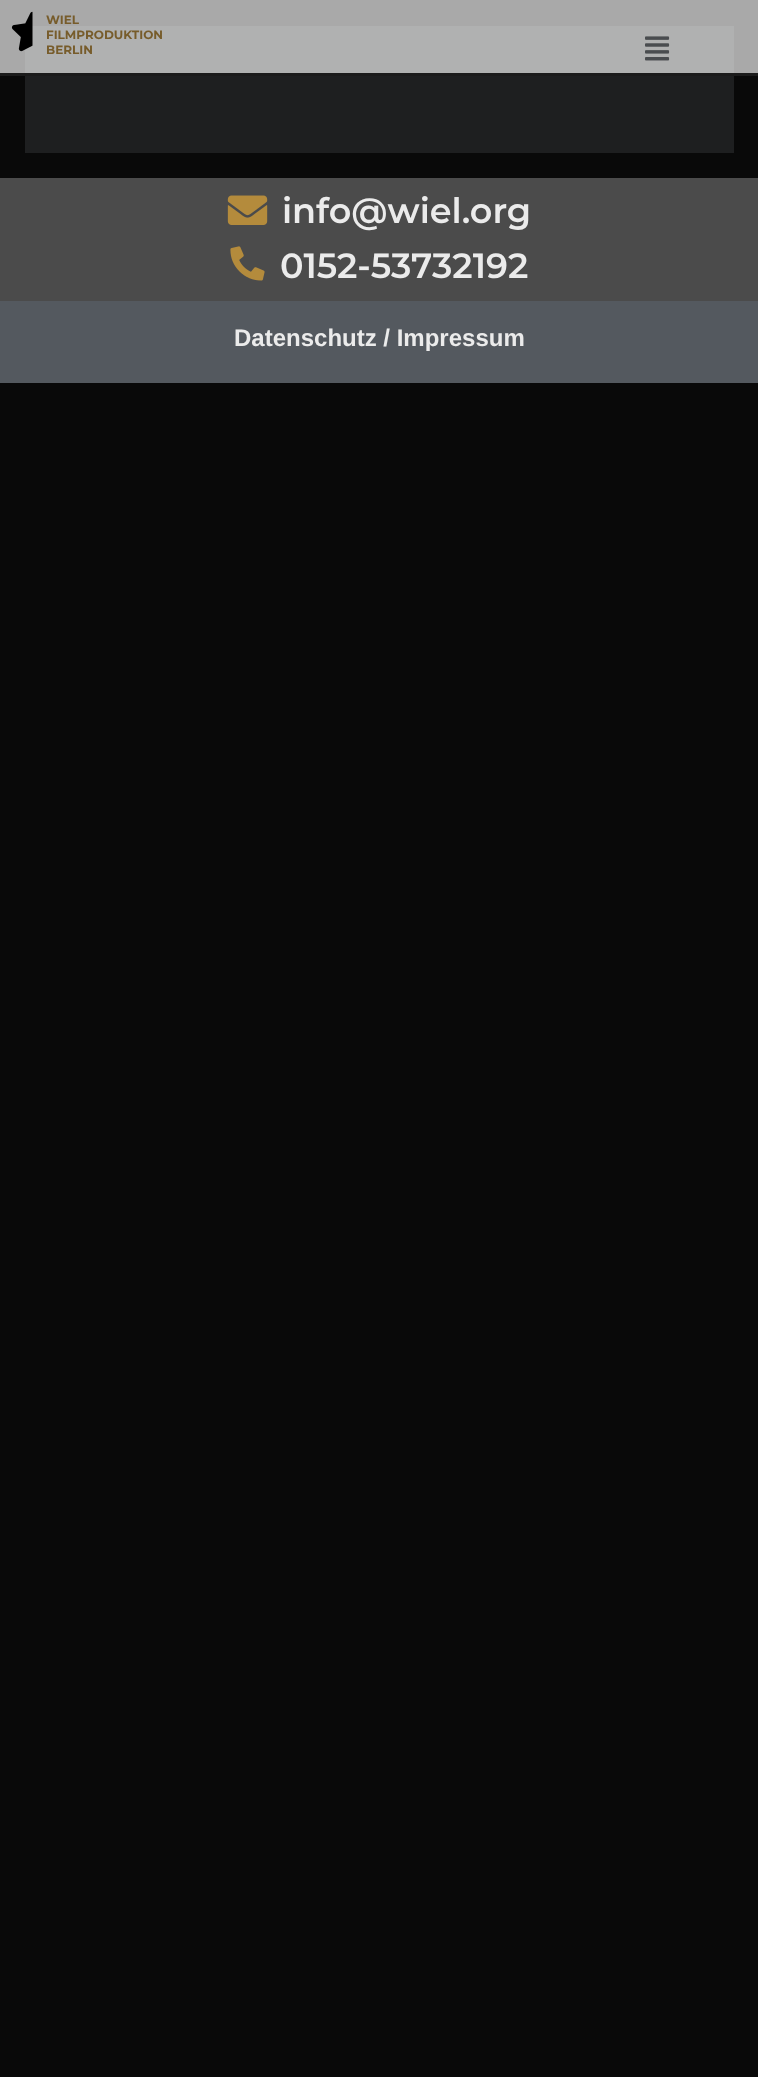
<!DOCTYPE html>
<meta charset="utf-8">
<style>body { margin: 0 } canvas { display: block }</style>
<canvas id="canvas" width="758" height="2077"></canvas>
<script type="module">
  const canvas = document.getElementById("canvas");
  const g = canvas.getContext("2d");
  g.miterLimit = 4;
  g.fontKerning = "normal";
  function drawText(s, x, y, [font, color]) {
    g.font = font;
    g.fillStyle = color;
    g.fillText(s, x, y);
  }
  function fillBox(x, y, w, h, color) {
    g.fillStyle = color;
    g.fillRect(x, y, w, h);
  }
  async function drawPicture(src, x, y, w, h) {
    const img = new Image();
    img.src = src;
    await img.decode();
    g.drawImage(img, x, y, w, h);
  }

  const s1 = ["bold 12px Montserrat", "#775C2B"];
  const s2 = ["600 35px Montserrat", "#EBEBEB"];
  const s3 = ["bold 24px Liberation Sans", "#EBEBEB"];

  fillBox(0, 0, 758, 2077, "#090909");
  fillBox(0, 0, 758, 73, "#A9A9A9");
  fillBox(0, 73, 758, 3, "#1B1B1B");
  fillBox(25, 26, 709, 47, "#B0B1B1");
  await drawPicture("pic1.png", 11, 11, 22, 41);
  drawText("WIEL", 46, 24, s1);
  drawText("FILMPRODUKTION", 46, 39, s1);
  drawText("BERLIN", 46, 54, s1);
  await drawPicture("pic2.png", 645, 36, 25, 25);
  fillBox(25, 76, 709, 77, "#1E1F20");
  fillBox(0, 178, 758, 123, "#4B4B4B");
  await drawPicture("pic3.png", 227, 195, 41, 30);
  drawText("info@wiel.org", 282, 223, s2);
  await drawPicture("pic4.png", 230, 246, 35, 35);
  drawText("0152-53732192", 280, 278, s2);
  fillBox(0, 301, 758, 82, "#54595F");
  drawText("Datenschutz / Impressum", 234, 346, s3);
</script>
